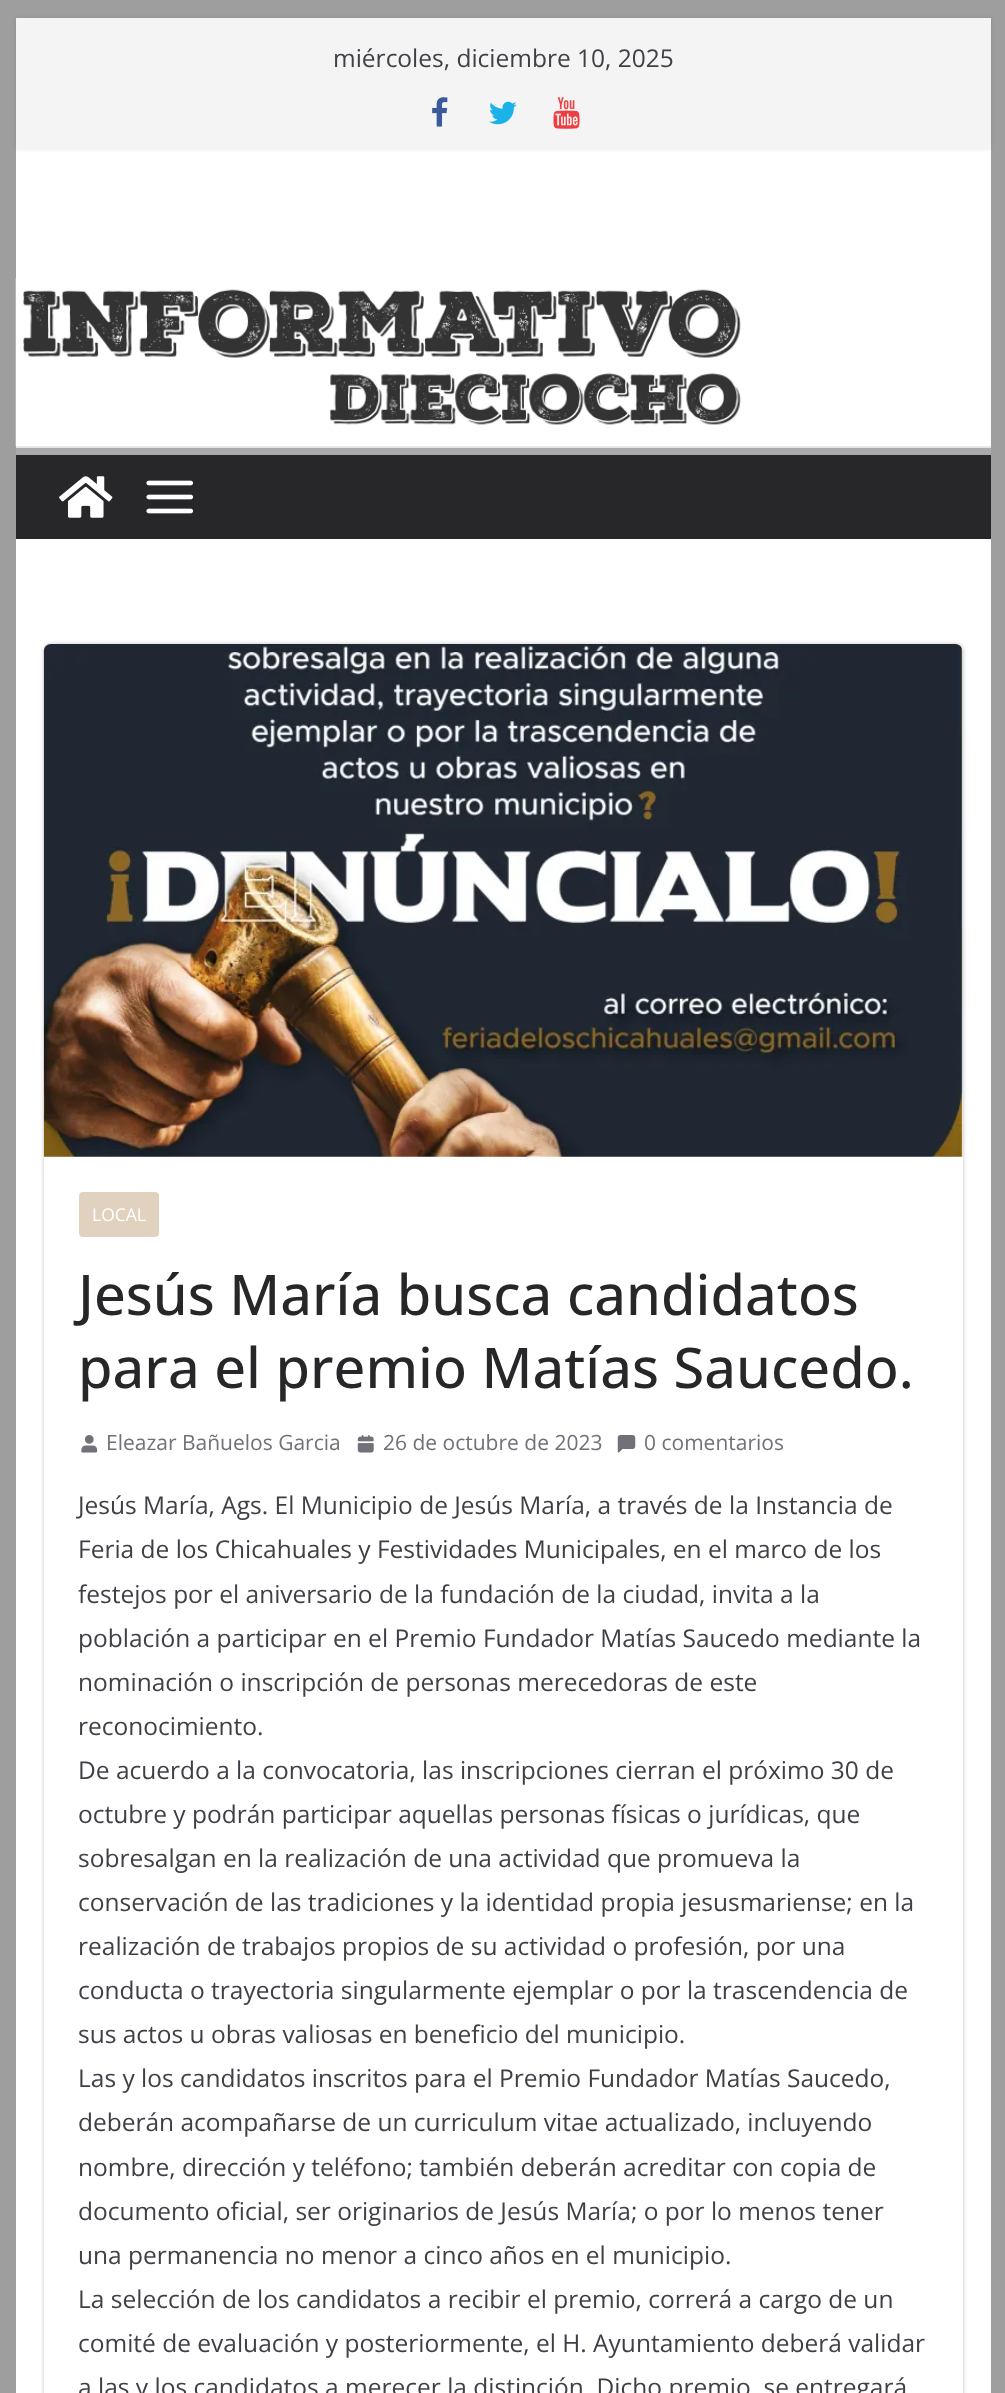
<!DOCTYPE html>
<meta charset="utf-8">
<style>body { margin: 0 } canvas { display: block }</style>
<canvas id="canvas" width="1005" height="2393"></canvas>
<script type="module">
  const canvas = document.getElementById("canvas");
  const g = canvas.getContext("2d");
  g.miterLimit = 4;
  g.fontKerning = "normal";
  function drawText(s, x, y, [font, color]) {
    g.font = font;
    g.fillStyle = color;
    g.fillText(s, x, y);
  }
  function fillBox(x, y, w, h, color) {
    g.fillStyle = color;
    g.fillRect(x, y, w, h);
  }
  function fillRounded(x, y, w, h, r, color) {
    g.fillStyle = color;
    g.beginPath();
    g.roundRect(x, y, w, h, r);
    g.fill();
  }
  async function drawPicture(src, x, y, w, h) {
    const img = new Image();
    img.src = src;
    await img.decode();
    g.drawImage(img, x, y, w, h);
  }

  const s1 = ["24.5px Open Sans", "#3F3F46"];
  const s2 = ["17.5px Open Sans", "#FFFFFF"];
  const s3 = ["500 56px Open Sans", "#27272A"];
  const s4 = ["21px Open Sans", "#71717A"];

  fillBox(0, 0, 1005, 2393, "#9E9E9E");
  fillBox(16, 149, 975, 297, "#FFFFFF");
  g.fillStyle = "rgba(0, 0, 0, 0.1)";
  g.filter = "blur(2px)";
  g.beginPath();
  g.rect(16, 18, 975, 131);
  g.fill();
  g.filter = "none";
  fillBox(16, 18, 975, 131, "#F4F4F5");
  drawText("miércoles, diciembre 10, 2025", 333, 67, s1);
  await drawPicture("pic1.png", 432, 97, 16, 30);
  await drawPicture("pic2.png", 489, 101, 28, 24);
  await drawPicture("pic3.png", 553, 97, 27, 32);
  fillBox(16, 446, 975, 2, "#E4E4E7");
  await drawPicture("pic4.png", 15, 278, 975, 169);
  fillBox(16, 455, 975, 84, "#27272A");
  fillBox(16, 448, 975, 7, "#AAAAAA");
  await drawPicture("pic5.png", 59, 476, 54, 42);
  await drawPicture("pic6.png", 146, 480, 47, 34);
  fillBox(16, 539, 975, 1854, "#FFFFFF");
  g.save();
  g.beginPath();
  g.moveTo(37, 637);
  g.lineTo(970, 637);
  g.lineTo(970, 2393);
  g.lineTo(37, 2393);
  g.closePath();
  g.moveTo(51, 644);
  g.lineTo(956, 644);
  g.bezierCurveTo(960, 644, 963, 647, 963, 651);
  g.lineTo(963, 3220);
  g.bezierCurveTo(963, 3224, 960, 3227, 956, 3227);
  g.lineTo(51, 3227);
  g.bezierCurveTo(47, 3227, 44, 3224, 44, 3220);
  g.lineTo(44, 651);
  g.bezierCurveTo(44, 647, 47, 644, 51, 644);
  g.closePath();
  g.clip("evenodd");
  g.fillStyle = "rgba(0, 0, 0, 0.24)";
  g.filter = "blur(2px)";
  g.beginPath();
  g.roundRect(44, 644, 919, 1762, 7);
  g.fill();
  g.filter = "none";
  g.restore();
  await drawPicture("pic7.png", 43, 644, 920, 513);
  fillRounded(79, 1192, 80, 45, 4, "#E1D2BF");
  drawText("LOCAL", 92, 1221, s2);
  drawText("Jesús María busca candidatos", 78, 1315, s3);
  drawText("para el premio Matías Saucedo.", 78, 1388, s3);
  await drawPicture("pic8.png", 81, 1435, 17, 18);
  drawText("Eleazar Bañuelos Garcia", 106, 1450, s4);
  await drawPicture("pic9.png", 357, 1435, 17, 18);
  drawText("26 de octubre de 2023", 383, 1450, s4);
  await drawPicture("pic10.png", 617, 1435, 19, 18);
  drawText("0 comentarios", 644, 1450, s4);
  drawText("Jesús María, Ags. El Municipio de Jesús María, a través de la Instancia de", 78, 1514, s1);
  drawText("Feria de los Chicahuales y Festividades Municipales, en el marco de los", 78, 1558, s1);
  drawText("festejos por el aniversario de la fundación de la ciudad, invita a la", 78, 1603, s1);
  drawText("población a participar en el Premio Fundador Matías Saucedo mediante la", 78, 1647, s1);
  drawText("nominación o inscripción de personas merecedoras de este", 78, 1691, s1);
  drawText("reconocimiento.", 78, 1735, s1);
  drawText("De acuerdo a la convocatoria, las inscripciones cierran el próximo 30 de", 78, 1779, s1);
  drawText("octubre y podrán participar aquellas personas físicas o jurídicas, que", 78, 1823, s1);
  drawText("sobresalgan en la realización de una actividad que promueva la", 78, 1867, s1);
  drawText("conservación de las tradiciones y la identidad propia jesusmariense; en la", 78, 1911, s1);
  drawText("realización de trabajos propios de su actividad o profesión, por una", 78, 1955, s1);
  drawText("conducta o trayectoria singularmente ejemplar o por la trascendencia de", 78, 1999, s1);
  drawText("sus actos u obras valiosas en beneficio del municipio.", 78, 2043, s1);
  drawText("Las y los candidatos inscritos para el Premio Fundador Matías Saucedo,", 78, 2087, s1);
  drawText("deberán acompañarse de un curriculum vitae actualizado, incluyendo", 78, 2131, s1);
  drawText("nombre, dirección y teléfono; también deberán acreditar con copia de", 78, 2176, s1);
  drawText("documento oficial, ser originarios de Jesús María; o por lo menos tener", 78, 2220, s1);
  drawText("una permanencia no menor a cinco años en el municipio.", 78, 2264, s1);
  drawText("La selección de los candidatos a recibir el premio, correrá a cargo de un", 78, 2308, s1);
  drawText("comité de evaluación y posteriormente, el H. Ayuntamiento deberá validar", 78, 2352, s1);
  drawText("a las y los candidatos a merecer la distinción. Dicho premio, se entregará", 78, 2396, s1);
</script>
